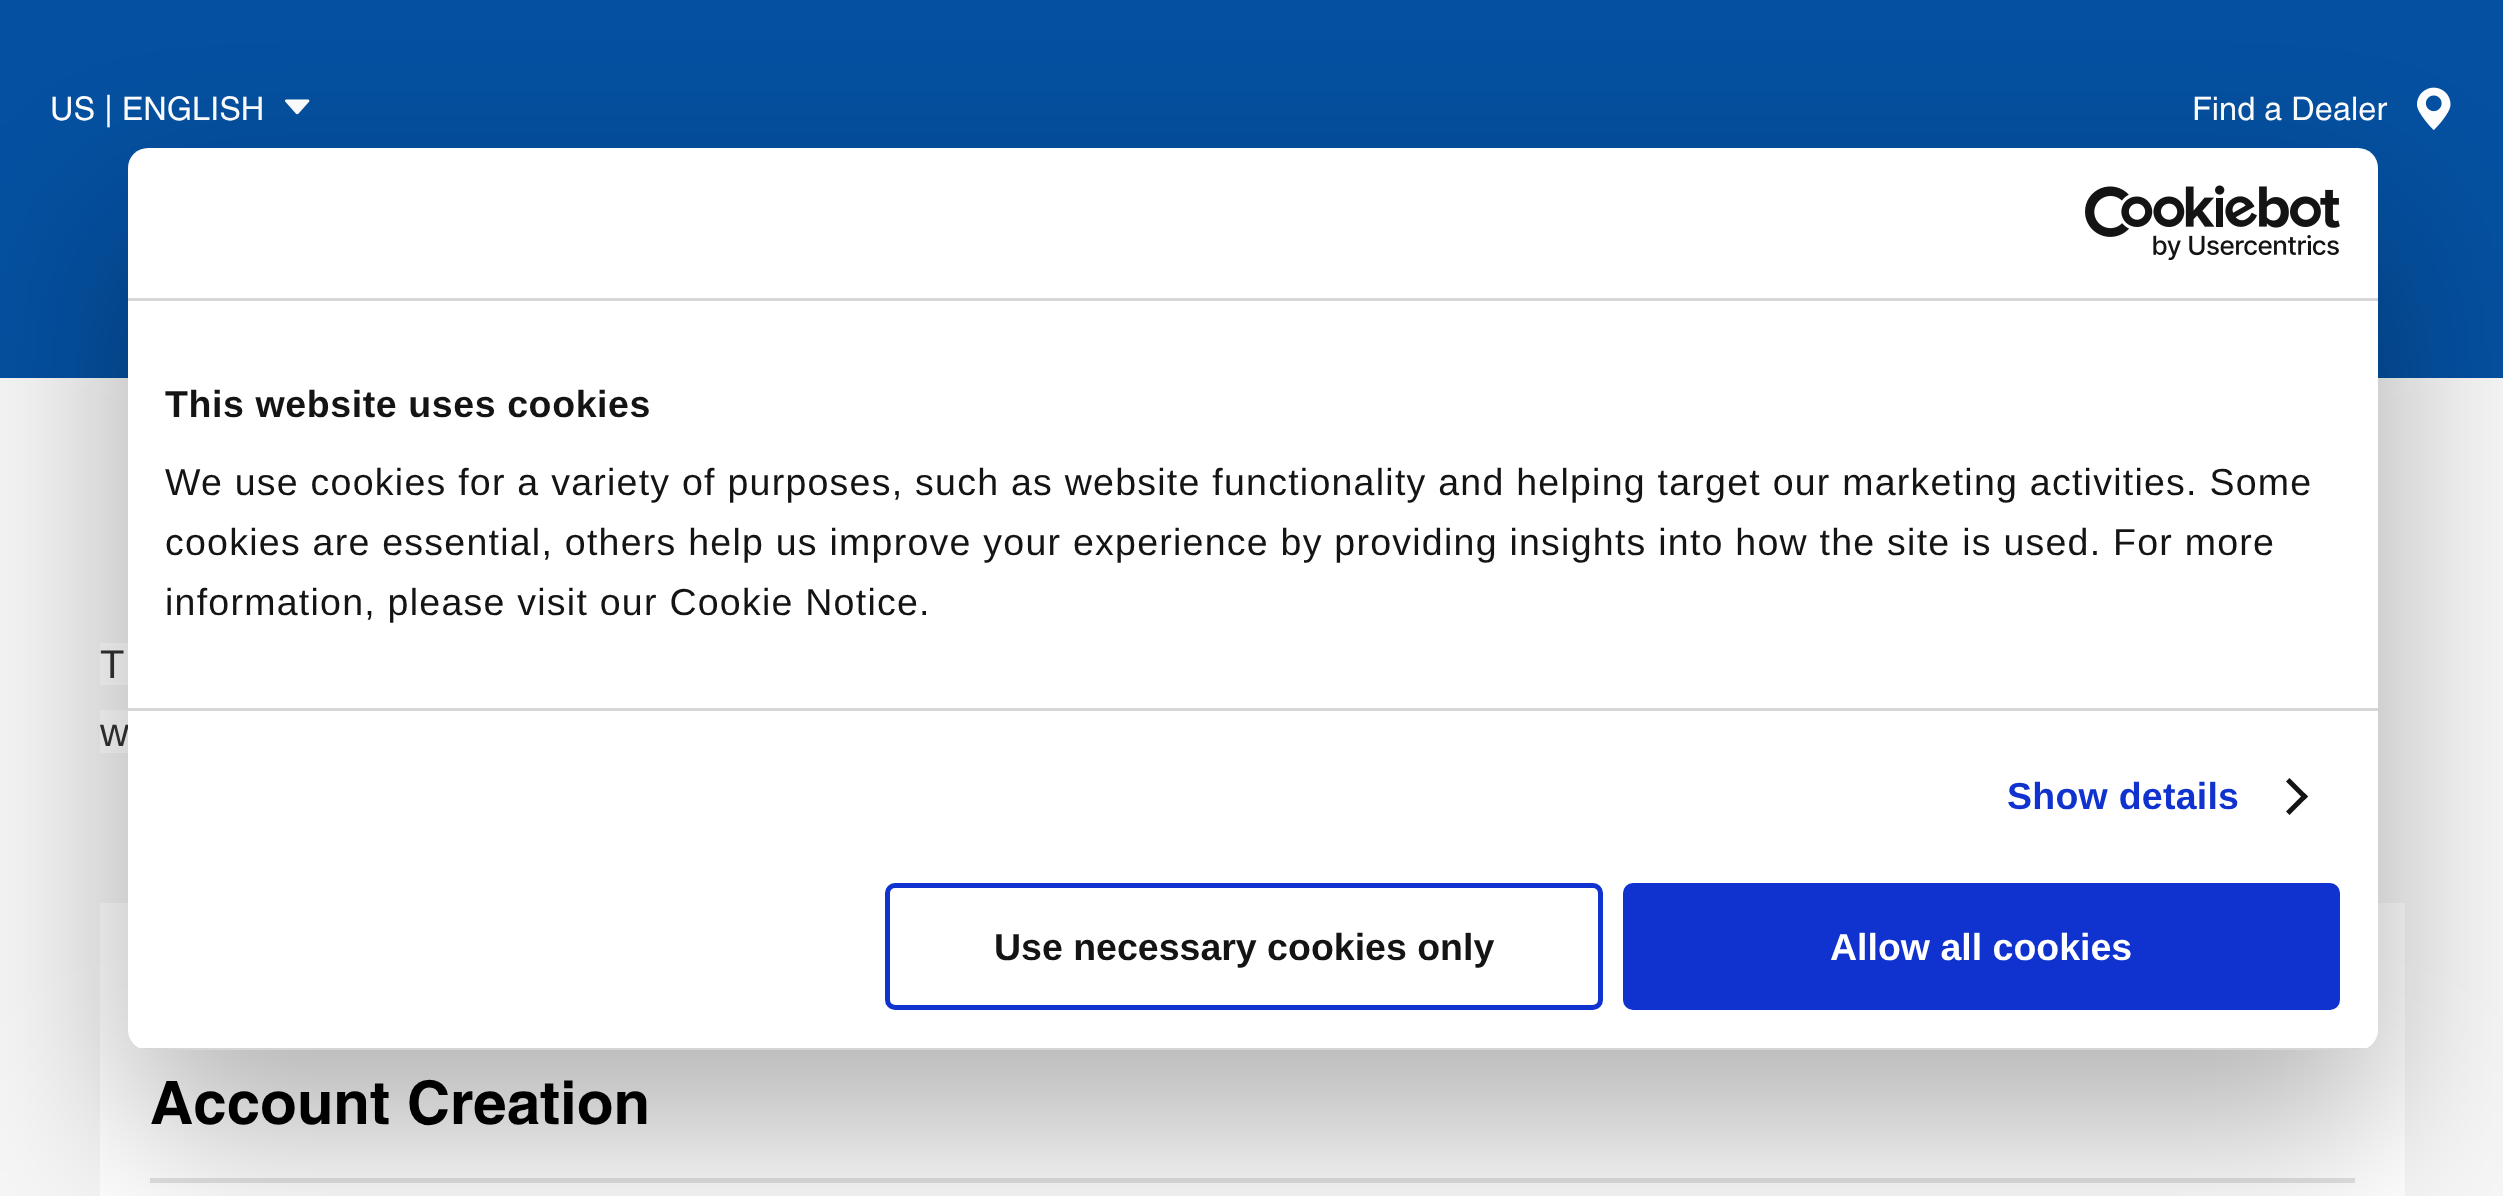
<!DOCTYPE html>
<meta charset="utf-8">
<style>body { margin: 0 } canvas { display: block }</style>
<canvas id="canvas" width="2503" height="1196"></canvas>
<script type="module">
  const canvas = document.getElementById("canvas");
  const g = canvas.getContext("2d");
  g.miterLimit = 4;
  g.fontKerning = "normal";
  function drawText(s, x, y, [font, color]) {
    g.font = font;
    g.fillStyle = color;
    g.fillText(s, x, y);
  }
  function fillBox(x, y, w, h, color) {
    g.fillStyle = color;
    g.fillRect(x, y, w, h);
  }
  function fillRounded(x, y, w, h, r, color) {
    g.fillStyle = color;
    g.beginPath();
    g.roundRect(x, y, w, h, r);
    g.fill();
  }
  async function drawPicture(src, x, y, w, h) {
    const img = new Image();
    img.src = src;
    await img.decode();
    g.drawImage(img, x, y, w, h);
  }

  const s1 = ["32.5px Helvetica", "#FFFFFF"];
  const s2 = ["40px Liberation Sans", "#333333"];
  const s3 = ["bold 60px Helvetica", "#000000"];
  const s4 = ["bold 37.5px Liberation Sans", "#141414"];
  const s5 = ["37.5px Liberation Sans", "#141414"];
  const s6 = ["bold 37.5px Liberation Sans", "#1032CF"];
  const s7 = ["bold 37.5px Liberation Sans", "#FFFFFF"];

  fillBox(0, 0, 2503, 1196, "#0550A0");
  drawText("US | ENGLISH", 50, 120, s1);
  await drawPicture("pic1.png", 285, 99, 25, 16);
  drawText("Find a Dealer", 2192, 120, s1);
  await drawPicture("pic2.png", 2417, 87, 34, 44);
  fillBox(0, 378, 2503, 818, "#F6F6F6");
  fillBox(100, 643, 28, 42, "#FFFFFF");
  drawText("T", 100, 678, s2);
  fillBox(100, 710, 28, 43, "#FFFFFF");
  drawText("w", 100, 746, s2);
  fillBox(100, 903, 2305, 293, "#FFFFFF");
  fillBox(150, 1178, 2205, 5, "#E3E3E3");
  drawText("Account Creation", 150, 1124, s3);
  g.fillStyle = "rgba(0, 0, 0, 0.3)";
  g.filter = "blur(85px)";
  g.beginPath();
  g.roundRect(128, 228, 2250, 902, 20);
  g.fill();
  g.filter = "none";
  fillRounded(128, 148, 2250, 902, 20, "#FFFFFF");
  fillBox(128, 298, 2250, 3, "#D6D6D6");
  await drawPicture("pic3.png", 2085, 185, 255, 75);
  fillBox(128, 708, 2250, 3, "#D6D6D6");
  g.letterSpacing = "0.6px";
  drawText("This website uses cookies", 165, 417, s4);
  g.letterSpacing = "1.25px";
  drawText("We use cookies for a variety of purposes, such as website functionality and helping target our marketing activities. Some", 165, 495, s5);
  drawText("cookies are essential, others help us improve your experience by providing insights into how the site is used. For more", 165, 555, s5);
  drawText("information, please visit our Cookie Notice.", 165, 615, s5);
  g.letterSpacing = "0.25px";
  drawText("Show details", 2007, 809, s6);
  g.fillStyle = "#141414";
  g.beginPath();
  g.moveTo(2289.5, 778);
  g.lineTo(2308, 796.5);
  g.lineTo(2304.5, 800);
  g.lineTo(2286, 781.5);
  g.closePath();
  g.fill();
  g.beginPath();
  g.moveTo(2304.5, 793);
  g.lineTo(2308, 796.5);
  g.lineTo(2289.5, 815);
  g.lineTo(2286, 811.5);
  g.closePath();
  g.fill();
  g.save();
  g.beginPath();
  g.roundRect(128, 148, 2250, 902, 20);
  g.clip();
  fillBox(139, 1048, 2228, 2, "#D6D6D6");
  g.restore();
  g.beginPath();
  g.roundRect(887.5, 885.5, 713, 122, 7.5);
  g.strokeStyle = "#1032CF";
  g.lineWidth = 5;
  g.stroke();
  g.letterSpacing = "0px";
  drawText("Use necessary cookies only", 994, 960, s4);
  g.fillStyle = "#1032CF";
  g.beginPath();
  g.roundRect(1625.5, 885.5, 712, 122, 7.5);
  g.fill();
  g.stroke();
  drawText("Allow all cookies", 1830, 960, s7);
</script>
